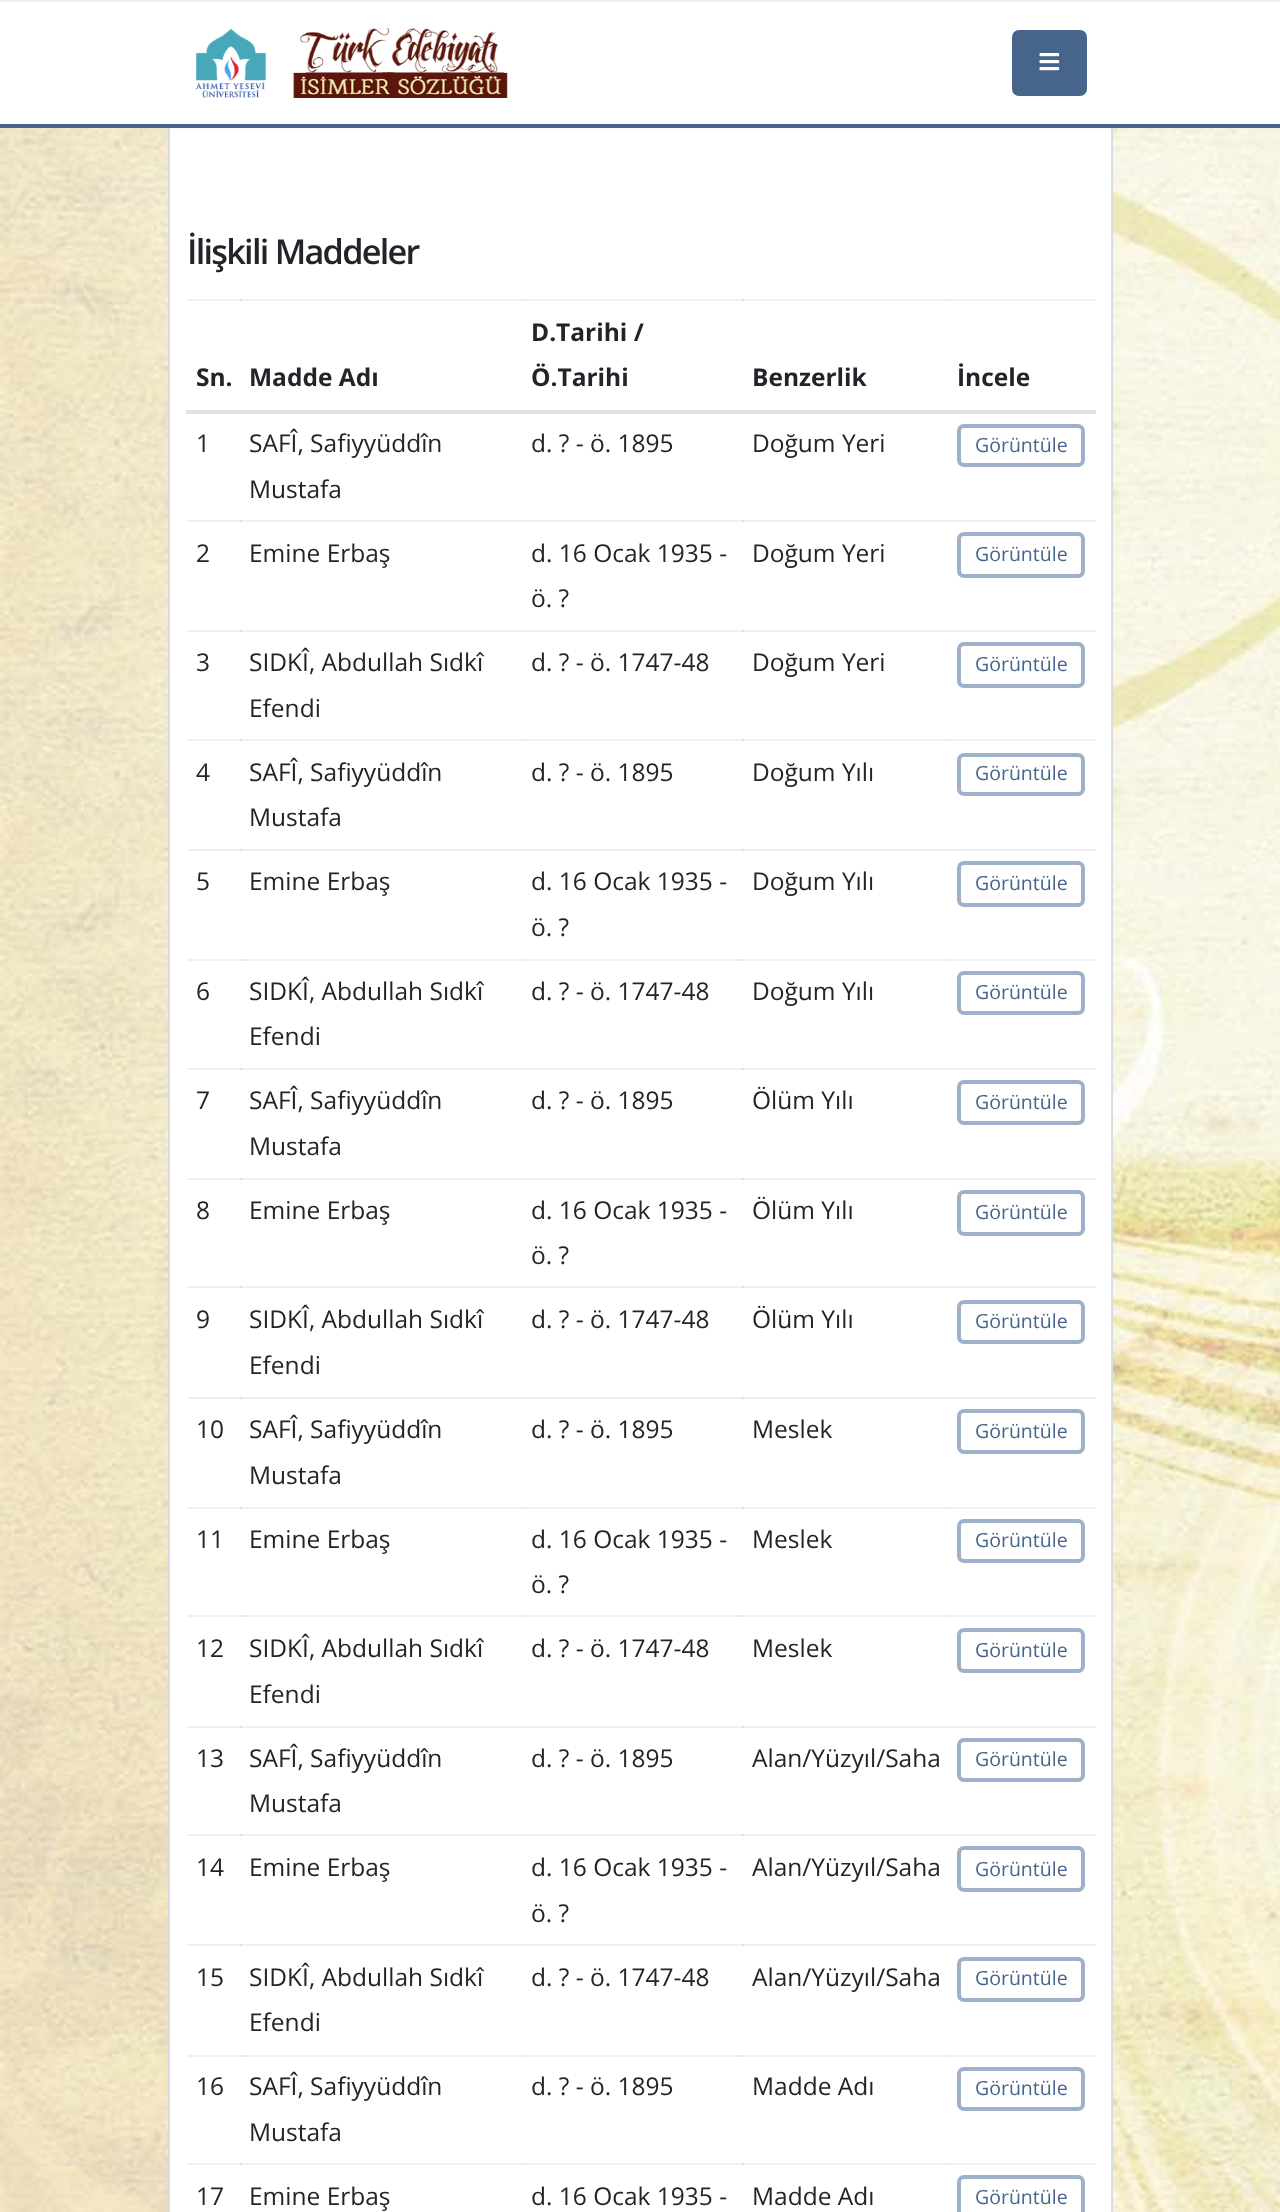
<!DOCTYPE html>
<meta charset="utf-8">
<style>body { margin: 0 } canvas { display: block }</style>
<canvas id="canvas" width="1280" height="2212"></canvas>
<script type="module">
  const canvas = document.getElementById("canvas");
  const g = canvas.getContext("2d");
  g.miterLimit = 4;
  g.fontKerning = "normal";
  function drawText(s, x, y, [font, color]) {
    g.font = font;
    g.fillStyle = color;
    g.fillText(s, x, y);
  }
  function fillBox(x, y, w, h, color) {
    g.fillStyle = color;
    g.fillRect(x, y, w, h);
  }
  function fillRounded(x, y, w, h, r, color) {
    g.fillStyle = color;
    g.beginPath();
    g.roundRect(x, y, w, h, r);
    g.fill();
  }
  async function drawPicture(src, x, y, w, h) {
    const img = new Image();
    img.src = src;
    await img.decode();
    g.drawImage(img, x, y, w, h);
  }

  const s1 = ["600 34.25px Open Sans", "#212529"];
  const s2 = ["bold 24.5px Open Sans", "#212529"];
  const s3 = ["24.5px Open Sans", "#212529"];
  const s4 = ["19.5px Open Sans", "#47648B"];

  fillBox(0, 0, 1280, 2212, "#FFFFFF");
  await drawPicture("pic3.png", 0, 128, 1280, 2084);
  fillBox(170, 128, 941, 2084, "#FFFFFF");
  fillBox(1111, 128, 2, 2084, "#D7DCDF");
  fillBox(168, 128, 2, 2084, "#D7DCDF");
  g.fillStyle = "rgba(234, 234, 234, 0.5)";
  g.filter = "blur(2.5px)";
  g.beginPath();
  g.rect(0, 0, 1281, 128);
  g.fill();
  g.filter = "none";
  fillBox(0, 2, 1280, 122, "#FFFFFF");
  fillBox(0, 124, 1280, 4, "#47648B");
  fillBox(0, 0, 1280, 2, "#F0F0F0");
  await drawPicture("pic1.png", 195, 28, 313, 70);
  fillRounded(1012, 30, 75, 66, 7, "#47648B");
  await drawPicture("pic2.png", 1039, 53, 21, 18);
  g.letterSpacing = "-1.75px";
  drawText("İlişkili Maddeler", 187, 264, s1);
  fillBox(949, 299, 147, 2, "#F0F0F0");
  fillBox(742, 299, 208, 2, "rgba(0, 0, 0, 0.06)");
  fillBox(522, 299, 222, 2, "rgba(0, 0, 0, 0.06)");
  fillBox(240, 299, 283, 2, "rgba(0, 0, 0, 0.06)");
  fillBox(187, 299, 55, 2, "rgba(0, 0, 0, 0.06)");
  g.letterSpacing = "0px";
  drawText("Sn.", 196, 386, s2);
  drawText("Madde Adı", 249, 386, s2);
  drawText("D.Tarihi /", 531, 341, s2);
  drawText("Ö.Tarihi", 531, 386, s2);
  drawText("Benzerlik", 752, 386, s2);
  fillBox(186, 410, 910, 4, "#DEE2E6");
  drawText("İncele", 957, 386, s2);
  drawText("1", 196, 452, s3);
  drawText("SAFÎ, Safiyyüddîn", 249, 452, s3);
  drawText("Mustafa", 249, 498, s3);
  drawText("d. ? - ö. 1895", 531, 452, s3);
  drawText("Doğum Yeri", 752, 452, s3);
  g.beginPath();
  g.roundRect(959, 426, 124, 39, 5);
  g.strokeStyle = "#9FB1CA";
  g.lineWidth = 4;
  g.stroke();
  drawText("Görüntüle", 975, 452, s4);
  fillBox(949, 520, 147, 2, "#F0F0F0");
  fillBox(742, 520, 208, 2, "rgba(0, 0, 0, 0.06)");
  fillBox(522, 520, 222, 2, "rgba(0, 0, 0, 0.06)");
  fillBox(240, 520, 283, 2, "rgba(0, 0, 0, 0.06)");
  fillBox(187, 520, 55, 2, "rgba(0, 0, 0, 0.06)");
  drawText("2", 196, 562, s3);
  drawText("Emine Erbaş", 249, 562, s3);
  drawText("d. 16 Ocak 1935 -", 531, 562, s3);
  drawText("ö. ?", 531, 607, s3);
  drawText("Doğum Yeri", 752, 562, s3);
  g.beginPath();
  g.roundRect(959, 534, 124, 42, 5);
  g.stroke();
  drawText("Görüntüle", 975, 561, s4);
  fillBox(949, 630, 147, 2, "#F0F0F0");
  fillBox(742, 630, 208, 2, "rgba(0, 0, 0, 0.06)");
  fillBox(522, 630, 222, 2, "rgba(0, 0, 0, 0.06)");
  fillBox(240, 630, 283, 2, "rgba(0, 0, 0, 0.06)");
  fillBox(187, 630, 55, 2, "rgba(0, 0, 0, 0.06)");
  drawText("3", 196, 671, s3);
  drawText("SIDKÎ, Abdullah Sıdkî", 249, 671, s3);
  drawText("Efendi", 249, 717, s3);
  drawText("d. ? - ö. 1747-48", 531, 671, s3);
  drawText("Doğum Yeri", 752, 671, s3);
  g.beginPath();
  g.roundRect(959, 644, 124, 42, 5);
  g.stroke();
  drawText("Görüntüle", 975, 671, s4);
  fillBox(949, 739, 147, 2, "#F0F0F0");
  fillBox(742, 739, 208, 2, "rgba(0, 0, 0, 0.06)");
  fillBox(522, 739, 222, 2, "rgba(0, 0, 0, 0.06)");
  fillBox(240, 739, 283, 2, "rgba(0, 0, 0, 0.06)");
  fillBox(187, 739, 55, 2, "rgba(0, 0, 0, 0.06)");
  drawText("4", 196, 781, s3);
  drawText("SAFÎ, Safiyyüddîn", 249, 781, s3);
  drawText("Mustafa", 249, 826, s3);
  drawText("d. ? - ö. 1895", 531, 781, s3);
  drawText("Doğum Yılı", 752, 781, s3);
  g.beginPath();
  g.roundRect(959, 755, 124, 39, 5);
  g.stroke();
  drawText("Görüntüle", 975, 780, s4);
  fillBox(949, 849, 147, 2, "#F0F0F0");
  fillBox(742, 849, 208, 2, "rgba(0, 0, 0, 0.06)");
  fillBox(522, 849, 222, 2, "rgba(0, 0, 0, 0.06)");
  fillBox(240, 849, 283, 2, "rgba(0, 0, 0, 0.06)");
  fillBox(187, 849, 55, 2, "rgba(0, 0, 0, 0.06)");
  drawText("5", 196, 890, s3);
  drawText("Emine Erbaş", 249, 890, s3);
  drawText("d. 16 Ocak 1935 -", 531, 890, s3);
  drawText("ö. ?", 531, 936, s3);
  drawText("Doğum Yılı", 752, 890, s3);
  g.beginPath();
  g.roundRect(959, 863, 124, 42, 5);
  g.stroke();
  drawText("Görüntüle", 975, 890, s4);
  fillBox(949, 959, 147, 2, "#F0F0F0");
  fillBox(742, 959, 208, 2, "rgba(0, 0, 0, 0.06)");
  fillBox(522, 959, 222, 2, "rgba(0, 0, 0, 0.06)");
  fillBox(240, 959, 283, 2, "rgba(0, 0, 0, 0.06)");
  fillBox(187, 959, 55, 2, "rgba(0, 0, 0, 0.06)");
  drawText("6", 196, 1000, s3);
  drawText("SIDKÎ, Abdullah Sıdkî", 249, 1000, s3);
  drawText("Efendi", 249, 1045, s3);
  drawText("d. ? - ö. 1747-48", 531, 1000, s3);
  drawText("Doğum Yılı", 752, 1000, s3);
  g.beginPath();
  g.roundRect(959, 973, 124, 40, 5);
  g.stroke();
  drawText("Görüntüle", 975, 999, s4);
  fillBox(949, 1068, 147, 2, "#F0F0F0");
  fillBox(742, 1068, 208, 2, "rgba(0, 0, 0, 0.06)");
  fillBox(522, 1068, 222, 2, "rgba(0, 0, 0, 0.06)");
  fillBox(240, 1068, 283, 2, "rgba(0, 0, 0, 0.06)");
  fillBox(187, 1068, 55, 2, "rgba(0, 0, 0, 0.06)");
  drawText("7", 196, 1109, s3);
  drawText("SAFÎ, Safiyyüddîn", 249, 1109, s3);
  drawText("Mustafa", 249, 1155, s3);
  drawText("d. ? - ö. 1895", 531, 1109, s3);
  drawText("Ölüm Yılı", 752, 1109, s3);
  g.beginPath();
  g.roundRect(959, 1082, 124, 41, 5);
  g.stroke();
  drawText("Görüntüle", 975, 1109, s4);
  fillBox(949, 1178, 147, 2, "#F0F0F0");
  fillBox(742, 1178, 208, 2, "rgba(0, 0, 0, 0.06)");
  fillBox(522, 1178, 222, 2, "rgba(0, 0, 0, 0.06)");
  fillBox(240, 1178, 283, 2, "rgba(0, 0, 0, 0.06)");
  fillBox(187, 1178, 55, 2, "rgba(0, 0, 0, 0.06)");
  drawText("8", 196, 1219, s3);
  drawText("Emine Erbaş", 249, 1219, s3);
  drawText("d. 16 Ocak 1935 -", 531, 1219, s3);
  drawText("ö. ?", 531, 1264, s3);
  drawText("Ölüm Yılı", 752, 1219, s3);
  g.beginPath();
  g.roundRect(959, 1192, 124, 42, 5);
  g.stroke();
  drawText("Görüntüle", 975, 1219, s4);
  fillBox(949, 1286, 147, 2, "#F0F0F0");
  fillBox(742, 1286, 208, 2, "rgba(0, 0, 0, 0.06)");
  fillBox(522, 1286, 222, 2, "rgba(0, 0, 0, 0.06)");
  fillBox(240, 1286, 283, 2, "rgba(0, 0, 0, 0.06)");
  fillBox(187, 1286, 55, 2, "rgba(0, 0, 0, 0.06)");
  drawText("9", 196, 1328, s3);
  drawText("SIDKÎ, Abdullah Sıdkî", 249, 1328, s3);
  drawText("Efendi", 249, 1374, s3);
  drawText("d. ? - ö. 1747-48", 531, 1328, s3);
  drawText("Ölüm Yılı", 752, 1328, s3);
  g.beginPath();
  g.roundRect(959, 1302, 124, 40, 5);
  g.stroke();
  drawText("Görüntüle", 975, 1328, s4);
  fillBox(949, 1397, 147, 2, "#F0F0F0");
  fillBox(742, 1397, 208, 2, "rgba(0, 0, 0, 0.06)");
  fillBox(522, 1397, 222, 2, "rgba(0, 0, 0, 0.06)");
  fillBox(240, 1397, 283, 2, "rgba(0, 0, 0, 0.06)");
  fillBox(187, 1397, 55, 2, "rgba(0, 0, 0, 0.06)");
  drawText("10", 196, 1438, s3);
  drawText("SAFÎ, Safiyyüddîn", 249, 1438, s3);
  drawText("Mustafa", 249, 1484, s3);
  drawText("d. ? - ö. 1895", 531, 1438, s3);
  drawText("Meslek", 752, 1438, s3);
  g.beginPath();
  g.roundRect(959, 1411, 124, 41, 5);
  g.stroke();
  drawText("Görüntüle", 975, 1438, s4);
  fillBox(949, 1507, 147, 2, "#F0F0F0");
  fillBox(742, 1507, 208, 2, "rgba(0, 0, 0, 0.06)");
  fillBox(522, 1507, 222, 2, "rgba(0, 0, 0, 0.06)");
  fillBox(240, 1507, 283, 2, "rgba(0, 0, 0, 0.06)");
  fillBox(187, 1507, 55, 2, "rgba(0, 0, 0, 0.06)");
  drawText("11", 196, 1548, s3);
  drawText("Emine Erbaş", 249, 1548, s3);
  drawText("d. 16 Ocak 1935 -", 531, 1548, s3);
  drawText("ö. ?", 531, 1593, s3);
  drawText("Meslek", 752, 1548, s3);
  g.beginPath();
  g.roundRect(959, 1521, 124, 40, 5);
  g.stroke();
  drawText("Görüntüle", 975, 1547, s4);
  fillBox(949, 1615, 147, 2, "#F0F0F0");
  fillBox(742, 1615, 208, 2, "rgba(0, 0, 0, 0.06)");
  fillBox(522, 1615, 222, 2, "rgba(0, 0, 0, 0.06)");
  fillBox(240, 1615, 283, 2, "rgba(0, 0, 0, 0.06)");
  fillBox(187, 1615, 55, 2, "rgba(0, 0, 0, 0.06)");
  drawText("12", 196, 1657, s3);
  drawText("SIDKÎ, Abdullah Sıdkî", 249, 1657, s3);
  drawText("Efendi", 249, 1703, s3);
  drawText("d. ? - ö. 1747-48", 531, 1657, s3);
  drawText("Meslek", 752, 1657, s3);
  g.beginPath();
  g.roundRect(959, 1630, 124, 41, 5);
  g.stroke();
  drawText("Görüntüle", 975, 1657, s4);
  fillBox(949, 1726, 147, 2, "#F0F0F0");
  fillBox(742, 1726, 208, 2, "rgba(0, 0, 0, 0.06)");
  fillBox(522, 1726, 222, 2, "rgba(0, 0, 0, 0.06)");
  fillBox(240, 1726, 283, 2, "rgba(0, 0, 0, 0.06)");
  fillBox(187, 1726, 55, 2, "rgba(0, 0, 0, 0.06)");
  drawText("13", 196, 1767, s3);
  drawText("SAFÎ, Safiyyüddîn", 249, 1767, s3);
  drawText("Mustafa", 249, 1812, s3);
  drawText("d. ? - ö. 1895", 531, 1767, s3);
  drawText("Alan/Yüzyıl/Saha", 752, 1767, s3);
  g.beginPath();
  g.roundRect(959, 1740, 124, 40, 5);
  g.stroke();
  drawText("Görüntüle", 975, 1766, s4);
  fillBox(949, 1834, 147, 2, "#F0F0F0");
  fillBox(742, 1834, 208, 2, "rgba(0, 0, 0, 0.06)");
  fillBox(522, 1834, 222, 2, "rgba(0, 0, 0, 0.06)");
  fillBox(240, 1834, 283, 2, "rgba(0, 0, 0, 0.06)");
  fillBox(187, 1834, 55, 2, "rgba(0, 0, 0, 0.06)");
  drawText("14", 196, 1876, s3);
  drawText("Emine Erbaş", 249, 1876, s3);
  drawText("d. 16 Ocak 1935 -", 531, 1876, s3);
  drawText("ö. ?", 531, 1922, s3);
  drawText("Alan/Yüzyıl/Saha", 752, 1876, s3);
  g.beginPath();
  g.roundRect(959, 1848, 124, 42, 5);
  g.stroke();
  drawText("Görüntüle", 975, 1876, s4);
  fillBox(949, 1944, 147, 2, "#F0F0F0");
  fillBox(742, 1944, 208, 2, "rgba(0, 0, 0, 0.06)");
  fillBox(522, 1944, 222, 2, "rgba(0, 0, 0, 0.06)");
  fillBox(240, 1944, 283, 2, "rgba(0, 0, 0, 0.06)");
  fillBox(187, 1944, 55, 2, "rgba(0, 0, 0, 0.06)");
  drawText("15", 196, 1986, s3);
  drawText("SIDKÎ, Abdullah Sıdkî", 249, 1986, s3);
  drawText("Efendi", 249, 2031, s3);
  drawText("d. ? - ö. 1747-48", 531, 1986, s3);
  drawText("Alan/Yüzyıl/Saha", 752, 1986, s3);
  g.beginPath();
  g.roundRect(959, 1959, 124, 41, 5);
  g.stroke();
  drawText("Görüntüle", 975, 1985, s4);
  fillBox(949, 2055, 147, 2, "#F0F0F0");
  fillBox(742, 2055, 208, 2, "rgba(0, 0, 0, 0.06)");
  fillBox(522, 2055, 222, 2, "rgba(0, 0, 0, 0.06)");
  fillBox(240, 2055, 283, 2, "rgba(0, 0, 0, 0.06)");
  fillBox(187, 2055, 55, 2, "rgba(0, 0, 0, 0.06)");
  drawText("16", 196, 2095, s3);
  drawText("SAFÎ, Safiyyüddîn", 249, 2095, s3);
  drawText("Mustafa", 249, 2141, s3);
  drawText("d. ? - ö. 1895", 531, 2095, s3);
  drawText("Madde Adı", 752, 2095, s3);
  g.beginPath();
  g.roundRect(959, 2069, 124, 40, 5);
  g.stroke();
  drawText("Görüntüle", 975, 2095, s4);
  fillBox(949, 2163, 147, 2, "#F0F0F0");
  fillBox(742, 2163, 208, 2, "rgba(0, 0, 0, 0.06)");
  fillBox(522, 2163, 222, 2, "rgba(0, 0, 0, 0.06)");
  fillBox(240, 2163, 283, 2, "rgba(0, 0, 0, 0.06)");
  fillBox(187, 2163, 55, 2, "rgba(0, 0, 0, 0.06)");
  drawText("17", 196, 2205, s3);
  drawText("Emine Erbaş", 249, 2205, s3);
  drawText("d. 16 Ocak 1935 -", 531, 2205, s3);
  drawText("Madde Adı", 752, 2205, s3);
  g.beginPath();
  g.roundRect(959, 2177, 124, 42, 5);
  g.stroke();
  drawText("Görüntüle", 975, 2204, s4);
</script>
